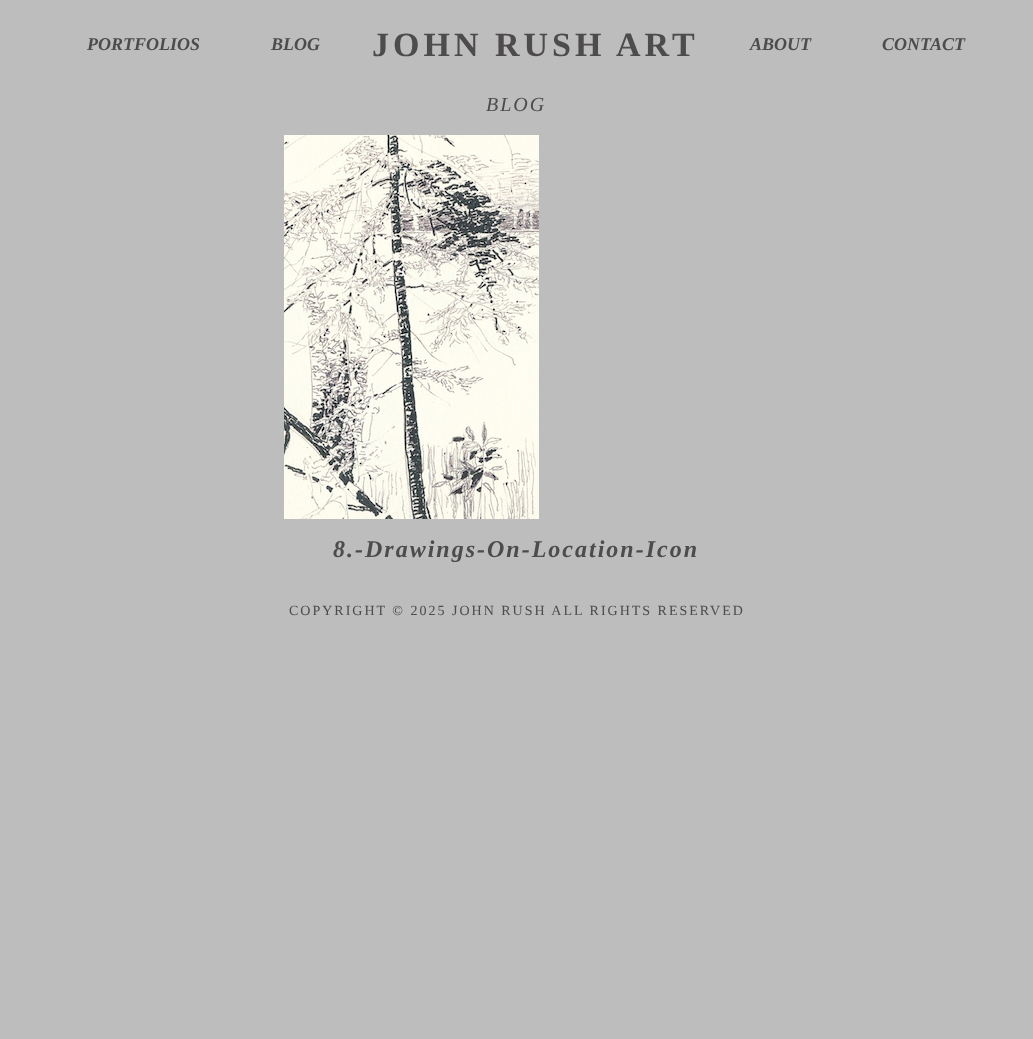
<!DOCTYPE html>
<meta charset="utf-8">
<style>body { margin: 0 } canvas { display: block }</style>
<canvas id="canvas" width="1033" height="1039"></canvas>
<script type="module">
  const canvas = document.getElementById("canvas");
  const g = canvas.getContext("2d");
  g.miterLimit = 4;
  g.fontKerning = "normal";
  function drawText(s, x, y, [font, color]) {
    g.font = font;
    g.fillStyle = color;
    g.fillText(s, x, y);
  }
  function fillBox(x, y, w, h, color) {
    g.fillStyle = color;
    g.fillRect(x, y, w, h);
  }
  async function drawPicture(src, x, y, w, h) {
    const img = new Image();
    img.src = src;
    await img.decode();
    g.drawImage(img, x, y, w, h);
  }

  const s1 = ["italic bold 18px Tinos", "#4D4B4C"];
  const s2 = ["bold 34px Tinos", "#4D4B4C"];
  const s3 = ["italic 20px Tinos", "#4D4B4C"];
  const s4 = ["italic bold 24px Tinos", "#4D4B4C"];
  const s5 = ["14px Tinos", "#4D4B4C"];

  fillBox(0, 0, 1033, 1039, "#BDBDBD");
  drawText("PORTFOLIOS", 87, 50, s1);
  drawText("BLOG", 271, 50, s1);
  g.letterSpacing = "4px";
  drawText("JOHN RUSH ART", 372, 56, s2);
  g.letterSpacing = "0px";
  drawText("ABOUT", 750, 50, s1);
  drawText("CONTACT", 882, 50, s1);
  g.letterSpacing = "2px";
  drawText("BLOG", 486, 111, s3);
  await drawPicture("pic1.png", 284, 135, 255, 384);
  drawText("8.-Drawings-On-Location-Icon", 333, 557, s4);
  drawText("COPYRIGHT © 2025 JOHN RUSH ALL RIGHTS RESERVED", 289, 615, s5);
</script>
